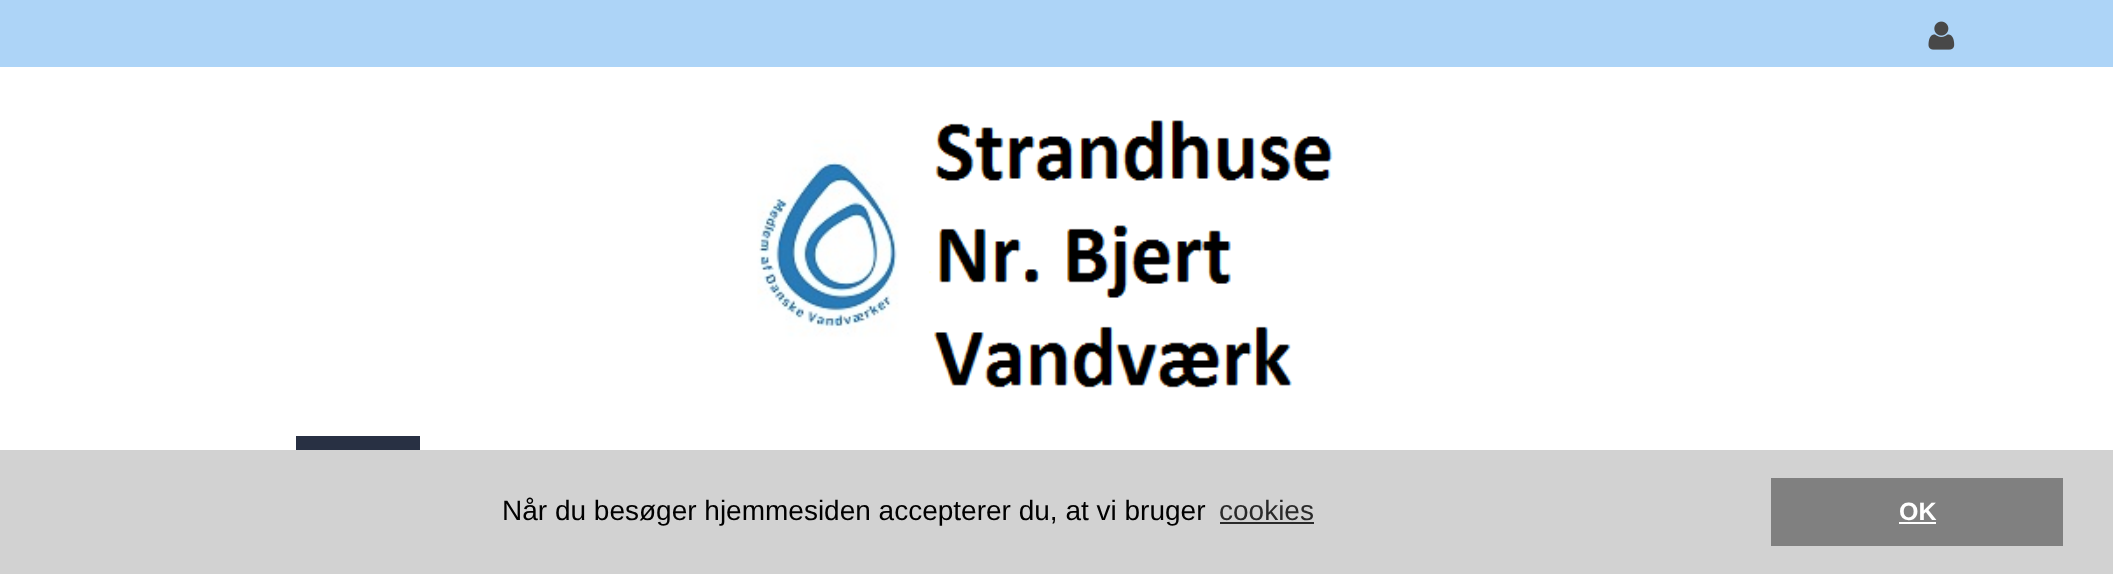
<!DOCTYPE html>
<meta charset="utf-8">
<style>body { margin: 0 } canvas { display: block }</style>
<canvas id="canvas" width="2113" height="574"></canvas>
<script type="module">
  const canvas = document.getElementById("canvas");
  const g = canvas.getContext("2d");
  g.miterLimit = 4;
  g.fontKerning = "normal";
  function drawText(s, x, y, [font, color]) {
    g.font = font;
    g.fillStyle = color;
    g.fillText(s, x, y);
  }
  function fillBox(x, y, w, h, color) {
    g.fillStyle = color;
    g.fillRect(x, y, w, h);
  }
  async function drawPicture(src, x, y, w, h) {
    const img = new Image();
    img.src = src;
    await img.decode();
    g.drawImage(img, x, y, w, h);
  }

  const s1 = ["28px Liberation Sans", "#000000"];
  const s2 = ["28px Liberation Sans", "#2A2A2A"];
  const s3 = ["bold 25px Liberation Sans", "#FFFFFF"];

  fillBox(0, 0, 2113, 574, "#FFFFFF");
  fillBox(0, 0, 2113, 67, "#ADD4F7");
  await drawPicture("pic1.png", 757, 120, 576, 268);
  fillBox(296, 436, 124, 14, "#283043");
  await drawPicture("pic2.png", 1928, 21, 27, 29);
  fillBox(0, 450, 2113, 124, "#D2D2D2");
  drawText("Når du besøger hjemmesiden accepterer du, at vi bruger", 502, 520, s1);
  drawText("cookies", 1219, 520, s2);
  fillBox(1220, 522, 94, 2, "#2A2A2A");
  fillBox(1771, 478, 292, 68, "#808080");
  drawText("OK", 1899, 520, s3);
  fillBox(1899, 522, 37, 2, "#FFFFFF");
</script>
